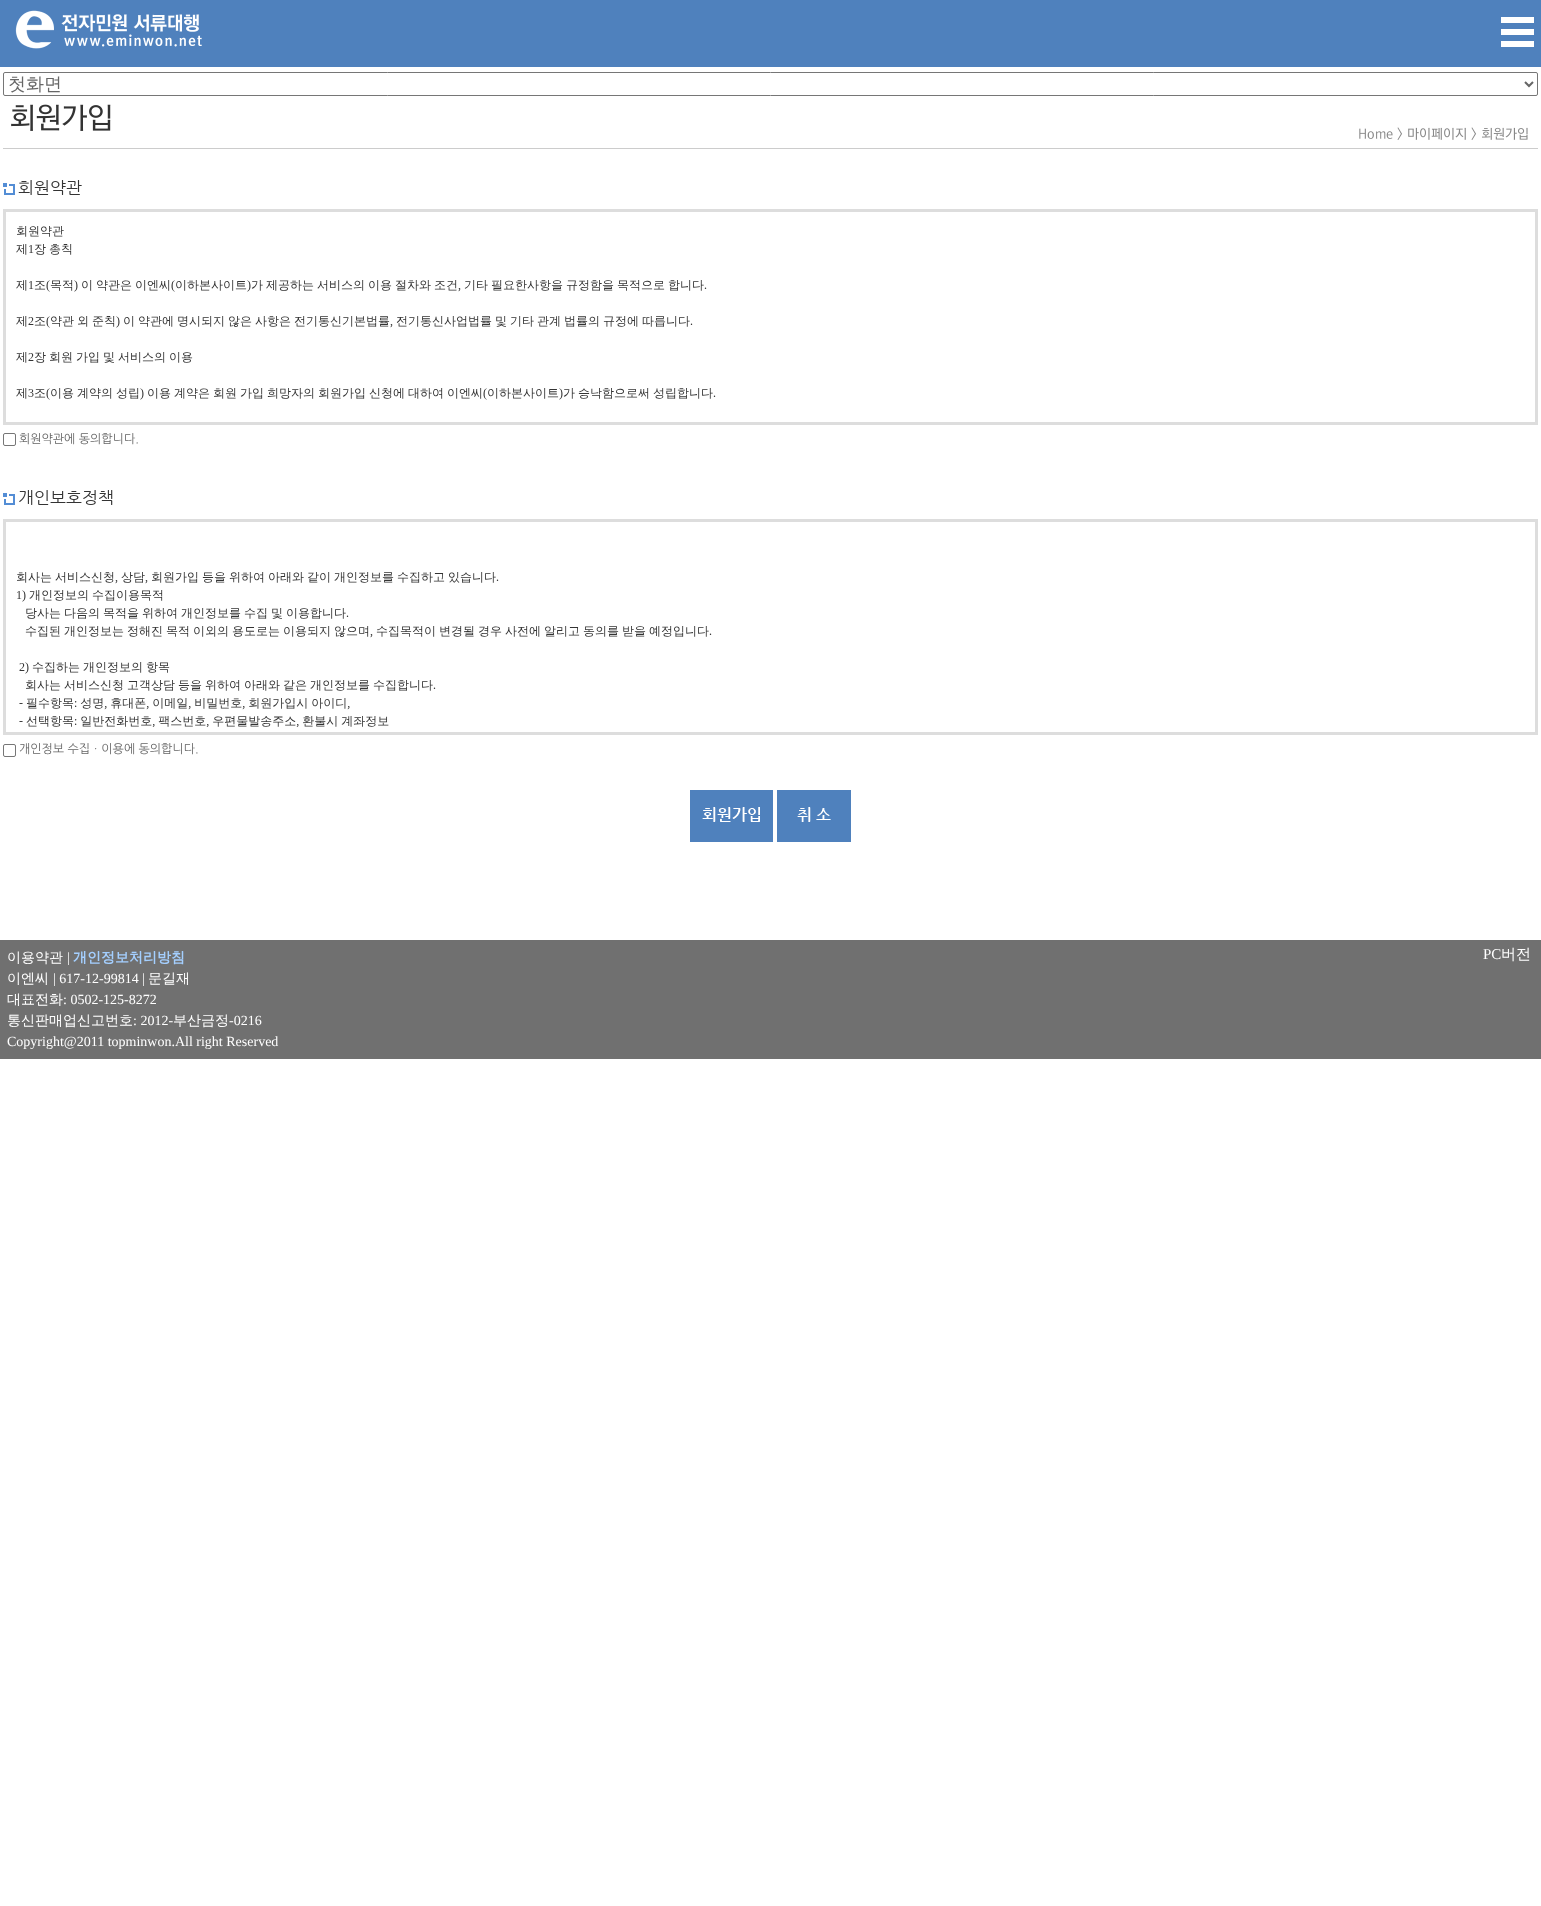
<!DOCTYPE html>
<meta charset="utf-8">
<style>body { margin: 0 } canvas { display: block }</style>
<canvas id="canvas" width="1541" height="1906"></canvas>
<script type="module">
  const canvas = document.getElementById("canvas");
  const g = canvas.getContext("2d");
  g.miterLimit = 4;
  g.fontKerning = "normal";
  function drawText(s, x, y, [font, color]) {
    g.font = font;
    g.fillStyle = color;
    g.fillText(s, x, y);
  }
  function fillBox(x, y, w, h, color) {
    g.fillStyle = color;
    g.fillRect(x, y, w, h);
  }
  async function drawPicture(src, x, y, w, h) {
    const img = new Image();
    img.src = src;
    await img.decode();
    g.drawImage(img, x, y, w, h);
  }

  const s1 = ["500 18px WenQuanYi Zen Hei", "#666666"];
  const s2 = ["12px NanumGothic", "#666666"];
  const s3 = ["500 14px WenQuanYi Zen Hei", "#FFFFFF"];
  const s4 = ["14px Liberation Serif", "#FFFFFF"];
  const s5 = ["bold 14px WenQuanYi Zen Hei", "#A4CFFF"];
  const s6 = ["15px Liberation Serif", "#FFFFFF"];
  const s7 = ["500 15px WenQuanYi Zen Hei", "#FFFFFF"];

  fillBox(0, 0, 1541, 1906, "#FFFFFF");
  fillBox(0, 0, 1541, 67, "#4F81BD");
  await drawPicture("pic1.png", 15, 10, 187, 39);
  await drawPicture("pic2.png", 1501, 17, 33, 30);
  g.beginPath();
  g.roundRect(3.5, 72.5, 1534, 23, 1.5);
  g.strokeStyle = "#767676";
  g.stroke();
  g.beginPath();
  g.moveTo(1525, 82);
  g.lineTo(1529, 86);
  g.lineTo(1533, 82);
  g.strokeStyle = "#666666";
  g.lineWidth = 2;
  g.stroke();
  drawText("첫화면", 8, 90, s1);
  fillBox(3, 148, 1535, 1, "#CCCCCC");
  await drawPicture("pic3.png", 11, 104, 100, 27);
  await drawPicture("pic4.png", 1359, 127, 169, 13);
  await drawPicture("pic5.png", 3, 183, 12, 12);
  await drawPicture("pic6.png", 18, 180, 64, 15);
  g.strokeStyle = "#DDDDDD";
  g.lineWidth = 3;
  g.strokeRect(4.5, 210.5, 1532, 213);
  await drawPicture("pic7.png", 16, 226, 700, 174);
  g.beginPath();
  g.roundRect(3.5, 433.5, 12, 12, 1.5);
  g.strokeStyle = "#767676";
  g.lineWidth = 1;
  g.stroke();
  drawText("회원약관에 동의합니다.", 19, 443, s2);
  await drawPicture("pic5.png", 3, 493, 12, 12);
  await drawPicture("pic8.png", 19, 490, 94, 15);
  g.strokeStyle = "#DDDDDD";
  g.lineWidth = 3;
  g.strokeRect(4.5, 520.5, 1532, 213);
  await drawPicture("pic9.png", 17, 572, 695, 155);
  g.beginPath();
  g.roundRect(3.5, 744.5, 12, 12, 1.5);
  g.strokeStyle = "#767676";
  g.lineWidth = 1;
  g.stroke();
  drawText("개인정보 수집ㆍ이용에 동의합니다.", 19, 753, s2);
  await drawPicture("pic10.png", 690, 790, 83, 52);
  await drawPicture("pic11.png", 777, 790, 74, 52);
  fillBox(0, 940, 1541, 119, "#707070");
  drawText("이용약관", 7, 962, s3);
  drawText("|", 67, 962, s4);
  drawText("개인정보처리방침", 73, 962, s5);
  drawText("이엔씨", 7, 983, s3);
  drawText("| 617-12-99814 |", 53, 983, s4);
  drawText("문길재", 148, 983, s3);
  drawText("대표전화", 7, 1004, s3);
  drawText(": 0502-125-8272", 63, 1004, s4);
  drawText("통신판매업신고번호", 7, 1025, s3);
  drawText(": 2012-", 133, 1025, s4);
  drawText("부산금정", 173, 1025, s3);
  drawText("-0216", 229, 1025, s4);
  drawText("Copyright@2011 topminwon.All right Reserved", 7, 1046, s4);
  drawText("PC", 1483, 959, s6);
  drawText("버전", 1501, 959, s7);
</script>
